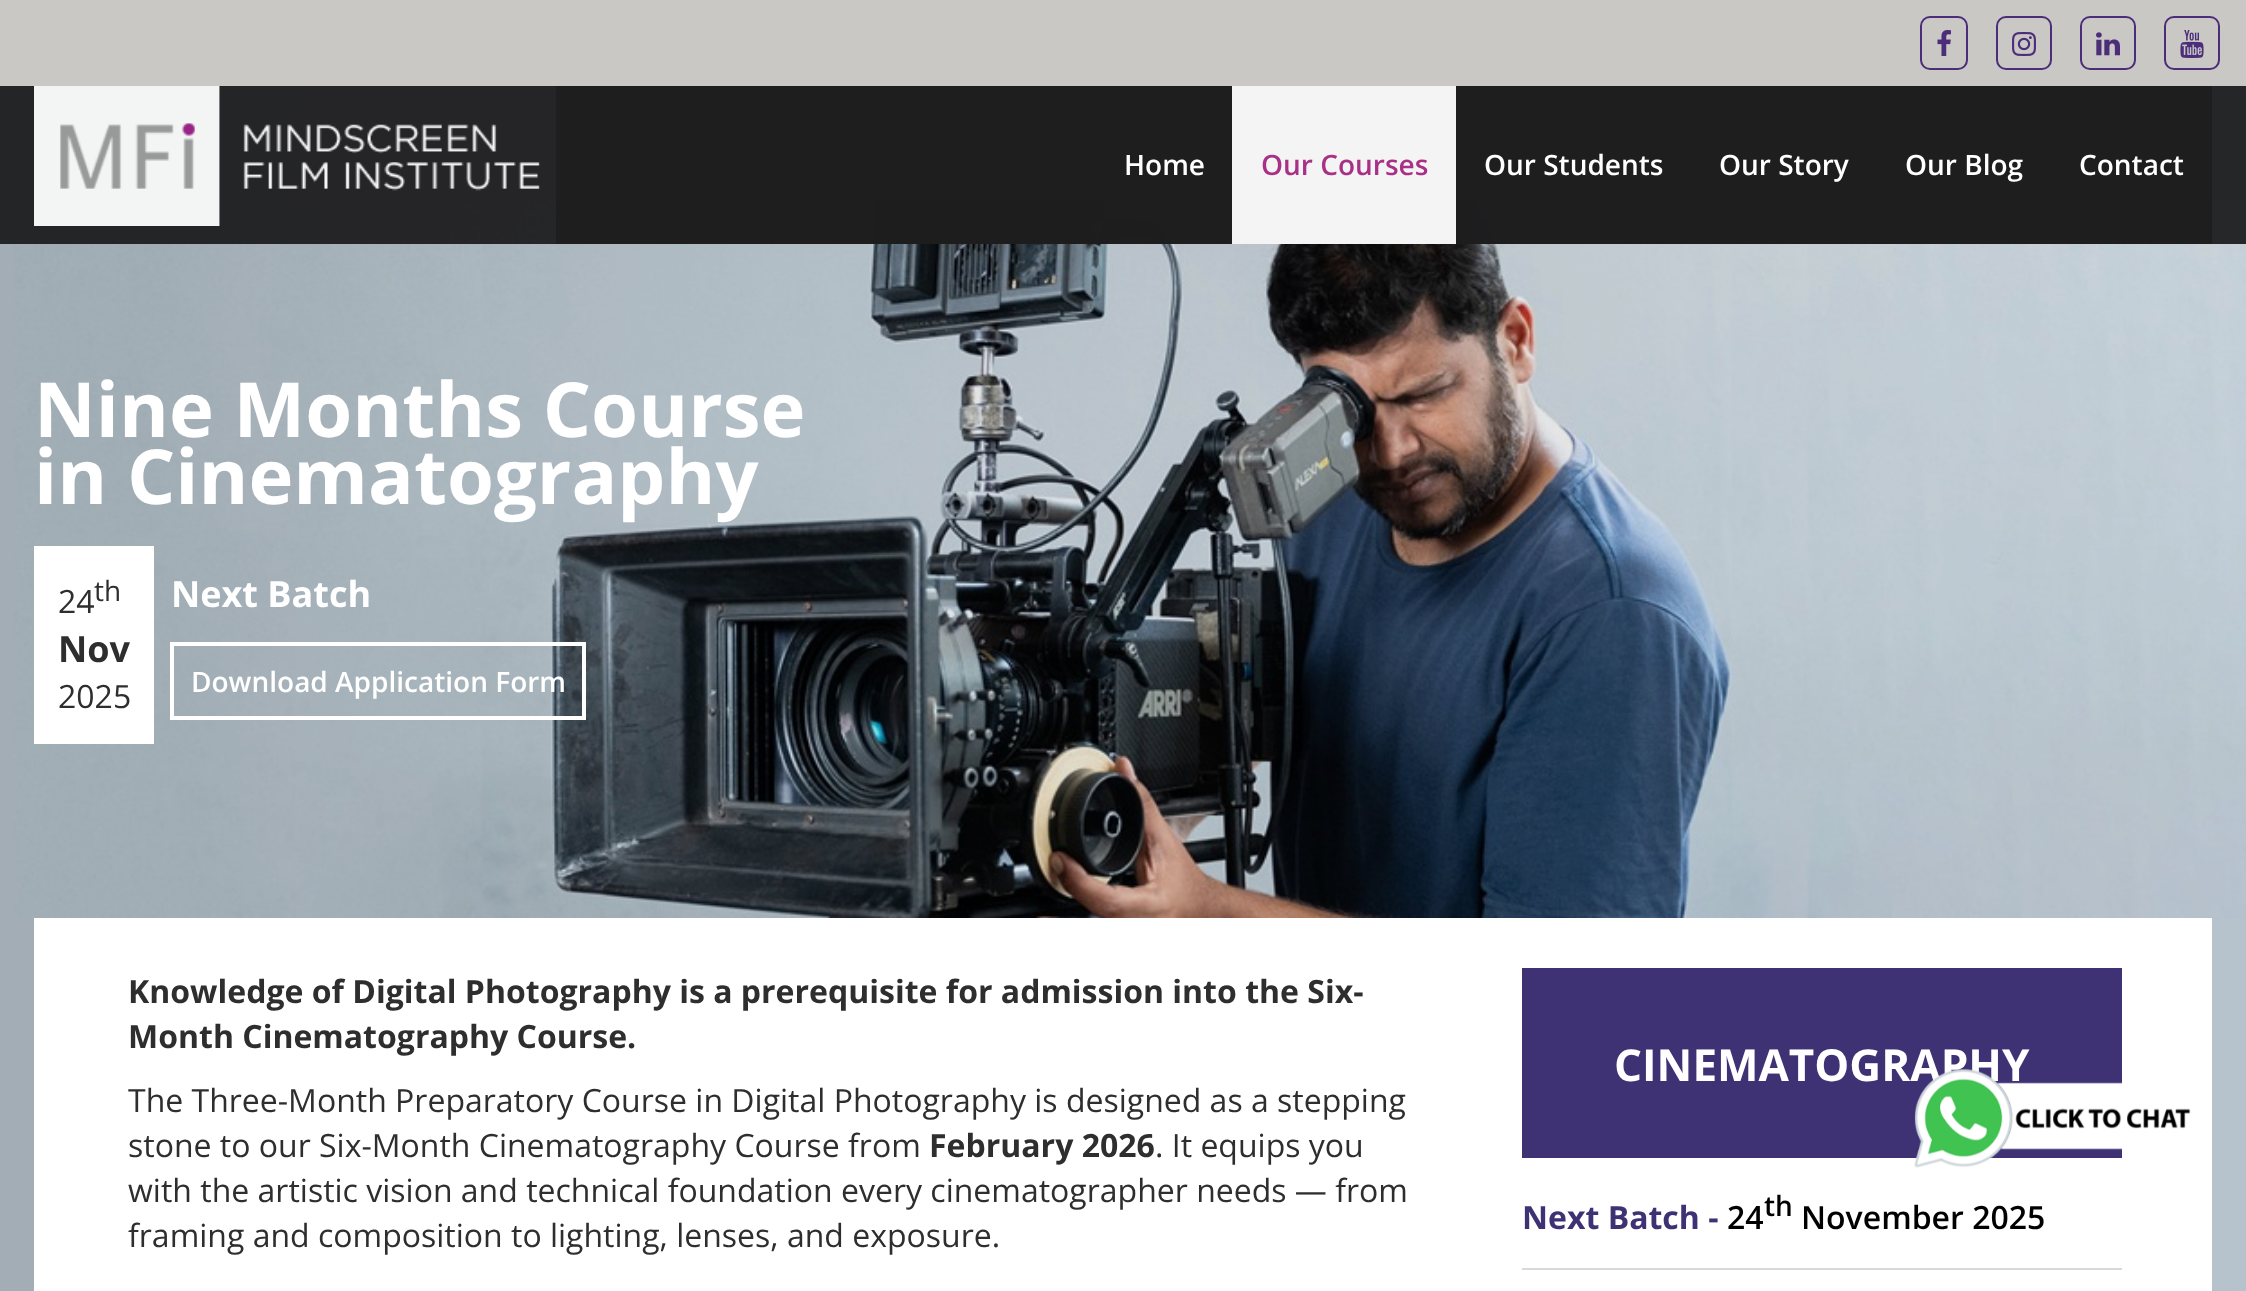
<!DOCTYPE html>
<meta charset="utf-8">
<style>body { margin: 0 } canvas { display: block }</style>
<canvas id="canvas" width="2246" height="1291"></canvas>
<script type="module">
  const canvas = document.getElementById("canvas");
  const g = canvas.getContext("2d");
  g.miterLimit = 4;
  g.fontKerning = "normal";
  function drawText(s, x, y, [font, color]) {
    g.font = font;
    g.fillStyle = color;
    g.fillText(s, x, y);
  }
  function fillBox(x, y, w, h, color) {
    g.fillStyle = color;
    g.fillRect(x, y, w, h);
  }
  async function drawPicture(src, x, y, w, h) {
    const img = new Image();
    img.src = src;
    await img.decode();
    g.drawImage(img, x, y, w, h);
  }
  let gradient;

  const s1 = ["600 28px Open Sans", "#FFFFFF"];
  const s2 = ["600 28px Open Sans", "#A83087"];
  const s3 = ["bold 76px Open Sans", "#FFFFFF"];
  const s4 = ["32px Open Sans", "#2E2E2E"];
  const s5 = ["28px Open Sans", "#2E2E2E"];
  const s6 = ["bold 36px Open Sans", "#2E2E2E"];
  const s7 = ["bold 36px Open Sans", "#FFFFFF"];
  const s8 = ["bold 32px Open Sans", "#2E2E2E"];
  const s9 = ["bold 44px Open Sans", "#FFFFFF"];
  const s10 = ["bold 32px Open Sans", "#3E3174"];
  const s11 = ["600 32px Open Sans", "#000000"];
  const s12 = ["600 28px Open Sans", "#000000"];

  fillBox(0, 0, 2246, 1291, "#FFFFFF");
  gradient = g.createLinearGradient(0, 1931, 2246, 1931);
  gradient.addColorStop(0, "#A2ADB6");
  gradient.addColorStop(1, "#B6C2CC");
  g.fillStyle = gradient;
  g.fillRect(0, 86, 2246, 1205);
  await drawPicture("pic6.png", 13, 200, 2233, 718);
  fillBox(0, 86, 2246, 158, "rgba(30, 30, 31, 0.95)");
  fillBox(0, 0, 2246, 86, "#C9C8C5");
  g.beginPath();
  g.roundRect(1921, 17, 46, 52, 9);
  g.strokeStyle = "#4B2D79";
  g.lineWidth = 2;
  g.stroke();
  await drawPicture("pic1.png", 1937, 30, 14, 26);
  g.beginPath();
  g.roundRect(1997, 17, 54, 52, 9);
  g.stroke();
  await drawPicture("pic2.png", 2012, 32, 24, 24);
  g.beginPath();
  g.roundRect(2081, 17, 54, 52, 9);
  g.strokeStyle = "#4C2D79";
  g.stroke();
  await drawPicture("pic3.png", 2096, 32, 24, 24);
  g.beginPath();
  g.roundRect(2165, 17, 54, 52, 9);
  g.stroke();
  await drawPicture("pic4.png", 2180, 30, 24, 28);
  await drawPicture("pic5.png", 34, 86, 506, 140);
  fillBox(556, 86, 1656, 158, "rgba(30, 30, 31, 0.95)");
  drawText("Home", 1124, 175, s1);
  fillBox(1232, 86, 224, 158, "#F4F4F4");
  drawText("Our Courses", 1261, 175, s2);
  drawText("Our Students", 1484, 175, s1);
  drawText("Our Story", 1719, 175, s1);
  drawText("Our Blog", 1905, 175, s1);
  drawText("Contact", 2079, 175, s1);
  drawText("Nine Months Course", 34, 437, s3);
  drawText("in Cinematography", 34, 504, s3);
  fillBox(34, 546, 120, 198, "#FFFFFF");
  drawText("24", 58, 613, s4);
  drawText("th", 94, 601, s5);
  drawText("Nov", 58, 662, s6);
  drawText("2025", 58, 708, s4);
  drawText("Next Batch", 171, 607, s7);
  g.strokeStyle = "#FFFFFF";
  g.lineWidth = 4;
  g.strokeRect(172, 644, 412, 74);
  drawText("Download Application Form", 191, 692, s1);
  fillBox(34, 918, 2178, 373, "#FFFFFF");
  drawText("Knowledge of Digital Photography is a prerequisite for admission into the Six-", 128, 1003, s8);
  drawText("Month Cinematography Course.", 128, 1048, s8);
  drawText("The Three-Month Preparatory Course in Digital Photography is designed as a stepping", 128, 1112, s4);
  drawText("stone to our Six-Month Cinematography Course from", 128, 1157, s4);
  drawText("February 2026", 929, 1157, s8);
  drawText(". It equips you", 1155, 1157, s4);
  drawText("with the artistic vision and technical foundation every cinematographer needs — from", 128, 1202, s4);
  drawText("framing and composition to lighting, lenses, and exposure.", 128, 1247, s4);
  fillBox(1522, 968, 600, 190, "#3E3174");
  drawText("CINEMATOGRAPHY", 1614, 1081, s9);
  fillBox(1522, 1268, 600, 2, "#D9D9D6");
  drawText("Next Batch -", 1522, 1229, s10);
  drawText("24", 1727, 1229, s11);
  drawText("th", 1764, 1216, s12);
  drawText("November 2025", 1801, 1229, s11);
  await drawPicture("pic7.png", 1914, 1069, 277, 99);
</script>
